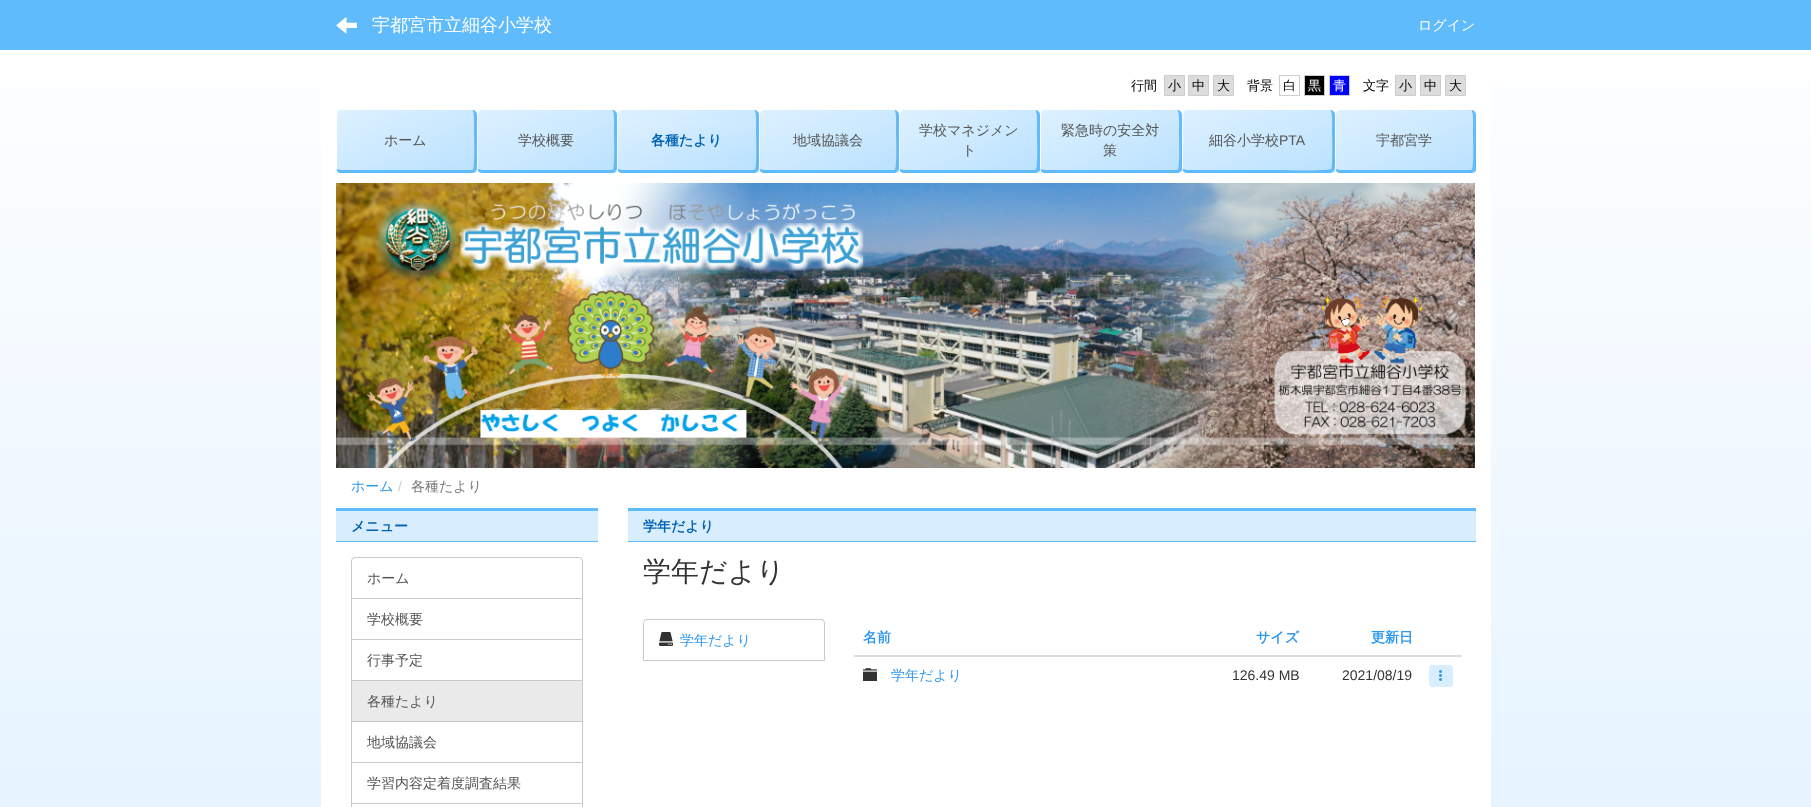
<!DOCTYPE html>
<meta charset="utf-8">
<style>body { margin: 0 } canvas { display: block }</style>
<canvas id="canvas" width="1811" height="807"></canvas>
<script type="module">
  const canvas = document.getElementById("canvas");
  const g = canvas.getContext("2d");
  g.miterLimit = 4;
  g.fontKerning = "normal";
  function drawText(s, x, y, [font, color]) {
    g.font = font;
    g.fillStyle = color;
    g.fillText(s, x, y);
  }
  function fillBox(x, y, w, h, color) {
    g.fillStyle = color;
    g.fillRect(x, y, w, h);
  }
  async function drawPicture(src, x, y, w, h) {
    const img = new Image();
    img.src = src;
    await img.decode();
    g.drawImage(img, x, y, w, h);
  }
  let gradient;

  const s1 = ["500 18px WenQuanYi Zen Hei", "#FFFFFF"];
  const s2 = ["500 14px WenQuanYi Zen Hei", "#FFFFFF"];
  const s3 = ["500 13px WenQuanYi Zen Hei", "#000000"];
  const s4 = ["500 13px WenQuanYi Zen Hei", "#FFFFFF"];
  const s5 = ["500 14px WenQuanYi Zen Hei", "#555555"];
  const s6 = ["bold 14px WenQuanYi Zen Hei", "#0062B2"];
  const s7 = ["14px Liberation Sans", "#555555"];
  const s8 = ["500 14px WenQuanYi Zen Hei", "#2D98EF"];
  const s9 = ["14px Liberation Sans", "#CCCCCC"];
  const s10 = ["500 14px WenQuanYi Zen Hei", "#777777"];
  const s11 = ["500 28px WenQuanYi Zen Hei", "#333333"];
  const s12 = ["bold 14px WenQuanYi Zen Hei", "#2D98EF"];
  const s13 = ["14px Liberation Sans", "#333333"];

  fillBox(0, 0, 1811, 807, "#FFFFFF");
  gradient = g.createLinearGradient(906, 807, 906, 0);
  gradient.addColorStop(0, "#E6F4FF");
  gradient.addColorStop(1, "#FFFFFF");
  g.fillStyle = gradient;
  g.fillRect(0, 81, 1811, 726);
  fillBox(0, 0, 1811, 50, "#5FBBFC");
  await drawPicture("pic1.png", 336, 17, 21, 17);
  drawText("宇都宮市立細谷小学校", 372, 31, s1);
  drawText("ログイン", 1418, 30, s2);
  fillBox(321, 81, 1170, 726, "#FFFFFF");
  drawText("行間", 1131, 90, s3);
  g.fillStyle = "#DCDCDC";
  g.beginPath();
  g.rect(1164.5, 75.5, 20, 20);
  g.fill();
  g.strokeStyle = "#CDCDCD";
  g.stroke();
  drawText("小", 1168, 90, s3);
  g.fillStyle = "#DCDCDC";
  g.beginPath();
  g.rect(1188.5, 75.5, 20, 20);
  g.fill();
  g.stroke();
  drawText("中", 1192, 90, s3);
  g.fillStyle = "#DCDCDC";
  g.beginPath();
  g.rect(1213.5, 75.5, 20, 20);
  g.fill();
  g.stroke();
  drawText("大", 1217, 90, s3);
  drawText("背景", 1247, 90, s3);
  g.strokeRect(1279.5, 75.5, 20, 20);
  drawText("白", 1283, 90, s3);
  g.beginPath();
  g.rect(1304.5, 75.5, 20, 20);
  g.fill();
  g.stroke();
  drawText("黒", 1308, 90, s4);
  g.fillStyle = "#0000FF";
  g.beginPath();
  g.rect(1329.5, 75.5, 20, 20);
  g.fill();
  g.stroke();
  drawText("青", 1333, 90, s4);
  drawText("文字", 1363, 90, s3);
  g.fillStyle = "#DCDCDC";
  g.beginPath();
  g.rect(1395.5, 75.5, 20, 20);
  g.fill();
  g.stroke();
  drawText("小", 1399, 90, s3);
  g.fillStyle = "#DCDCDC";
  g.beginPath();
  g.rect(1420.5, 75.5, 20, 20);
  g.fill();
  g.stroke();
  drawText("中", 1424, 90, s3);
  g.fillStyle = "#DCDCDC";
  g.beginPath();
  g.rect(1445.5, 75.5, 20, 20);
  g.fill();
  g.stroke();
  drawText("大", 1449, 90, s3);
  g.save();
  g.beginPath();
  g.roundRect(336, 110, 141, 63, 5);
  g.clip();
  gradient = g.createLinearGradient(246, 90, 291, 190);
  gradient.addColorStop(0, "#DDF1FF");
  gradient.addColorStop(1, "#BCE2FF");
  g.fillStyle = gradient;
  g.fillRect(336, 110, 1, 60);
  gradient = g.createLinearGradient(383, 90, 428, 190);
  gradient.addColorStop(0, "#DDF1FF");
  gradient.addColorStop(1, "#BCE2FF");
  g.fillStyle = gradient;
  g.fillRect(337, 110, 137, 60);
  gradient = g.createLinearGradient(246, 150, 291, 250);
  gradient.addColorStop(0, "#DDF1FF");
  gradient.addColorStop(1, "#BCE2FF");
  g.fillStyle = gradient;
  g.fillRect(336, 170, 1, 3);
  g.restore();
  g.fillStyle = "#5FBBFC";
  g.beginPath();
  g.moveTo(477, 115);
  g.bezierCurveTo(477, 112, 475, 110, 472, 110);
  g.bezierCurveTo(475, 110, 474, 130, 474, 133);
  g.bezierCurveTo(474, 137, 475, 168, 473, 169);
  g.lineTo(476, 172);
  g.bezierCurveTo(476, 171, 477, 170, 477, 168);
  g.closePath();
  g.fill();
  g.beginPath();
  g.moveTo(337, 169);
  g.bezierCurveTo(338, 169, 340, 170, 341, 170);
  g.lineTo(472, 170);
  g.lineTo(473, 169);
  g.lineTo(476, 172);
  g.lineTo(473, 173);
  g.lineTo(340, 173);
  g.bezierCurveTo(339, 173, 338, 172, 337, 171);
  g.closePath();
  g.fill();
  g.fillStyle = "#FFFFFF";
  g.beginPath();
  g.moveTo(341, 110);
  g.bezierCurveTo(338, 110, 336, 112, 336, 115);
  g.lineTo(336, 168);
  g.lineTo(337, 171);
  g.lineTo(337, 169);
  g.lineTo(337, 168);
  g.lineTo(337, 115);
  g.bezierCurveTo(337, 112, 339, 110, 341, 110);
  g.closePath();
  g.fill();
  drawText("ホーム", 384, 145, s5);
  g.save();
  g.beginPath();
  g.roundRect(477, 110, 140, 63, 5);
  g.clip();
  gradient = g.createLinearGradient(388, 90, 432, 190);
  gradient.addColorStop(0, "#DDF1FF");
  gradient.addColorStop(1, "#BCE2FF");
  g.fillStyle = gradient;
  g.fillRect(477, 110, 1, 60);
  gradient = g.createLinearGradient(524, 90, 568, 190);
  gradient.addColorStop(0, "#DDF1FF");
  gradient.addColorStop(1, "#BCE2FF");
  g.fillStyle = gradient;
  g.fillRect(478, 110, 136, 60);
  gradient = g.createLinearGradient(388, 150, 432, 250);
  gradient.addColorStop(0, "#DDF1FF");
  gradient.addColorStop(1, "#BCE2FF");
  g.fillStyle = gradient;
  g.fillRect(477, 170, 1, 3);
  g.restore();
  g.fillStyle = "#5FBBFC";
  g.beginPath();
  g.moveTo(617, 115);
  g.bezierCurveTo(617, 112, 615, 110, 612, 110);
  g.bezierCurveTo(615, 110, 614, 130, 614, 133);
  g.bezierCurveTo(614, 137, 615, 168, 613, 169);
  g.lineTo(616, 172);
  g.bezierCurveTo(616, 171, 617, 170, 617, 168);
  g.closePath();
  g.fill();
  g.beginPath();
  g.moveTo(478, 169);
  g.bezierCurveTo(479, 169, 481, 170, 482, 170);
  g.lineTo(612, 170);
  g.lineTo(613, 169);
  g.lineTo(616, 172);
  g.lineTo(613, 173);
  g.lineTo(481, 173);
  g.bezierCurveTo(480, 173, 479, 172, 478, 171);
  g.closePath();
  g.fill();
  g.fillStyle = "#FFFFFF";
  g.beginPath();
  g.moveTo(482, 110);
  g.bezierCurveTo(479, 110, 477, 112, 477, 115);
  g.lineTo(477, 168);
  g.lineTo(478, 171);
  g.lineTo(478, 169);
  g.lineTo(478, 168);
  g.lineTo(478, 115);
  g.bezierCurveTo(478, 112, 480, 110, 482, 110);
  g.closePath();
  g.fill();
  drawText("学校概要", 518, 145, s5);
  g.save();
  g.beginPath();
  g.roundRect(617, 110, 142, 63, 5);
  g.clip();
  gradient = g.createLinearGradient(527, 90, 571, 190);
  gradient.addColorStop(0, "#DDF1FF");
  gradient.addColorStop(1, "#BCE2FF");
  g.fillStyle = gradient;
  g.fillRect(617, 110, 1, 60);
  gradient = g.createLinearGradient(665, 90, 709, 190);
  gradient.addColorStop(0, "#DDF1FF");
  gradient.addColorStop(1, "#BCE2FF");
  g.fillStyle = gradient;
  g.fillRect(618, 110, 138, 60);
  gradient = g.createLinearGradient(527, 150, 571, 250);
  gradient.addColorStop(0, "#DDF1FF");
  gradient.addColorStop(1, "#BCE2FF");
  g.fillStyle = gradient;
  g.fillRect(617, 170, 1, 3);
  g.restore();
  g.fillStyle = "#5FBBFC";
  g.beginPath();
  g.moveTo(759, 115);
  g.bezierCurveTo(759, 112, 757, 110, 754, 110);
  g.bezierCurveTo(757, 110, 756, 130, 756, 133);
  g.bezierCurveTo(756, 137, 757, 168, 755, 169);
  g.lineTo(758, 172);
  g.bezierCurveTo(758, 171, 759, 170, 759, 168);
  g.closePath();
  g.fill();
  g.beginPath();
  g.moveTo(618, 169);
  g.bezierCurveTo(619, 169, 621, 170, 622, 170);
  g.lineTo(754, 170);
  g.lineTo(755, 169);
  g.lineTo(758, 172);
  g.lineTo(755, 173);
  g.lineTo(621, 173);
  g.bezierCurveTo(620, 173, 619, 172, 618, 171);
  g.closePath();
  g.fill();
  g.fillStyle = "#FFFFFF";
  g.beginPath();
  g.moveTo(622, 110);
  g.bezierCurveTo(619, 110, 617, 112, 617, 115);
  g.lineTo(617, 168);
  g.lineTo(618, 171);
  g.lineTo(618, 169);
  g.lineTo(618, 168);
  g.lineTo(618, 115);
  g.bezierCurveTo(618, 112, 620, 110, 622, 110);
  g.closePath();
  g.fill();
  gradient = g.createLinearGradient(676, 103, 698, 177);
  gradient.addColorStop(0, "#DDF1FF");
  gradient.addColorStop(1, "#BCE2FF");
  g.fillStyle = gradient;
  g.beginPath();
  g.roundRect(618, 120, 138, 40, 3);
  g.fill();
  drawText("各種たより", 651, 145, s6);
  g.save();
  g.beginPath();
  g.roundRect(759, 110, 140, 63, 5);
  g.clip();
  gradient = g.createLinearGradient(670, 90, 714, 190);
  gradient.addColorStop(0, "#DDF1FF");
  gradient.addColorStop(1, "#BCE2FF");
  g.fillStyle = gradient;
  g.fillRect(759, 110, 1, 60);
  gradient = g.createLinearGradient(806, 90, 850, 190);
  gradient.addColorStop(0, "#DDF1FF");
  gradient.addColorStop(1, "#BCE2FF");
  g.fillStyle = gradient;
  g.fillRect(760, 110, 136, 60);
  gradient = g.createLinearGradient(670, 150, 714, 250);
  gradient.addColorStop(0, "#DDF1FF");
  gradient.addColorStop(1, "#BCE2FF");
  g.fillStyle = gradient;
  g.fillRect(759, 170, 1, 3);
  g.restore();
  g.fillStyle = "#5FBBFC";
  g.beginPath();
  g.moveTo(899, 115);
  g.bezierCurveTo(899, 112, 897, 110, 894, 110);
  g.bezierCurveTo(897, 110, 896, 130, 896, 133);
  g.bezierCurveTo(896, 137, 897, 168, 895, 169);
  g.lineTo(898, 172);
  g.bezierCurveTo(898, 171, 899, 170, 899, 168);
  g.closePath();
  g.fill();
  g.beginPath();
  g.moveTo(760, 169);
  g.bezierCurveTo(761, 169, 763, 170, 764, 170);
  g.lineTo(894, 170);
  g.lineTo(895, 169);
  g.lineTo(898, 172);
  g.lineTo(895, 173);
  g.lineTo(763, 173);
  g.bezierCurveTo(762, 173, 761, 172, 760, 171);
  g.closePath();
  g.fill();
  g.fillStyle = "#FFFFFF";
  g.beginPath();
  g.moveTo(764, 110);
  g.bezierCurveTo(761, 110, 759, 112, 759, 115);
  g.lineTo(759, 168);
  g.lineTo(760, 171);
  g.lineTo(760, 169);
  g.lineTo(760, 168);
  g.lineTo(760, 115);
  g.bezierCurveTo(760, 112, 762, 110, 764, 110);
  g.closePath();
  g.fill();
  drawText("地域協議会", 793, 145, s5);
  g.save();
  g.beginPath();
  g.roundRect(899, 110, 141, 63, 5);
  g.clip();
  gradient = g.createLinearGradient(809, 90, 854, 190);
  gradient.addColorStop(0, "#DDF1FF");
  gradient.addColorStop(1, "#BCE2FF");
  g.fillStyle = gradient;
  g.fillRect(899, 110, 1, 60);
  gradient = g.createLinearGradient(946, 90, 991, 190);
  gradient.addColorStop(0, "#DDF1FF");
  gradient.addColorStop(1, "#BCE2FF");
  g.fillStyle = gradient;
  g.fillRect(900, 110, 137, 60);
  gradient = g.createLinearGradient(809, 150, 854, 250);
  gradient.addColorStop(0, "#DDF1FF");
  gradient.addColorStop(1, "#BCE2FF");
  g.fillStyle = gradient;
  g.fillRect(899, 170, 1, 3);
  g.restore();
  g.fillStyle = "#5FBBFC";
  g.beginPath();
  g.moveTo(1040, 115);
  g.bezierCurveTo(1040, 112, 1038, 110, 1035, 110);
  g.bezierCurveTo(1038, 110, 1037, 130, 1037, 133);
  g.bezierCurveTo(1037, 137, 1038, 168, 1036, 169);
  g.lineTo(1039, 172);
  g.bezierCurveTo(1040, 171, 1040, 170, 1040, 168);
  g.closePath();
  g.fill();
  g.beginPath();
  g.moveTo(900, 169);
  g.bezierCurveTo(901, 169, 903, 170, 904, 170);
  g.lineTo(1035, 170);
  g.lineTo(1036, 169);
  g.lineTo(1039, 172);
  g.lineTo(1036, 173);
  g.lineTo(903, 173);
  g.bezierCurveTo(902, 173, 901, 172, 900, 171);
  g.closePath();
  g.fill();
  g.fillStyle = "#FFFFFF";
  g.beginPath();
  g.moveTo(904, 110);
  g.bezierCurveTo(901, 110, 899, 112, 899, 115);
  g.lineTo(899, 168);
  g.lineTo(900, 171);
  g.lineTo(900, 169);
  g.lineTo(900, 168);
  g.lineTo(900, 115);
  g.bezierCurveTo(900, 112, 902, 110, 904, 110);
  g.closePath();
  g.fill();
  drawText("学校マネジメン", 919, 135, s5);
  drawText("ト", 962, 155, s5);
  g.save();
  g.beginPath();
  g.roundRect(1040, 110, 142, 63, 5);
  g.clip();
  gradient = g.createLinearGradient(950, 90, 994, 190);
  gradient.addColorStop(0, "#DDF1FF");
  gradient.addColorStop(1, "#BCE2FF");
  g.fillStyle = gradient;
  g.fillRect(1040, 110, 1, 60);
  gradient = g.createLinearGradient(1088, 90, 1132, 190);
  gradient.addColorStop(0, "#DDF1FF");
  gradient.addColorStop(1, "#BCE2FF");
  g.fillStyle = gradient;
  g.fillRect(1041, 110, 138, 60);
  gradient = g.createLinearGradient(950, 150, 994, 250);
  gradient.addColorStop(0, "#DDF1FF");
  gradient.addColorStop(1, "#BCE2FF");
  g.fillStyle = gradient;
  g.fillRect(1040, 170, 1, 3);
  g.restore();
  g.fillStyle = "#5FBBFC";
  g.beginPath();
  g.moveTo(1182, 115);
  g.bezierCurveTo(1182, 112, 1180, 110, 1177, 110);
  g.bezierCurveTo(1180, 110, 1179, 130, 1179, 133);
  g.bezierCurveTo(1179, 137, 1180, 168, 1178, 169);
  g.lineTo(1181, 172);
  g.bezierCurveTo(1182, 171, 1182, 170, 1182, 168);
  g.closePath();
  g.fill();
  g.beginPath();
  g.moveTo(1041, 169);
  g.bezierCurveTo(1042, 169, 1044, 170, 1045, 170);
  g.lineTo(1177, 170);
  g.lineTo(1178, 169);
  g.lineTo(1181, 172);
  g.lineTo(1178, 173);
  g.lineTo(1044, 173);
  g.bezierCurveTo(1043, 173, 1042, 172, 1041, 171);
  g.closePath();
  g.fill();
  g.fillStyle = "#FFFFFF";
  g.beginPath();
  g.moveTo(1045, 110);
  g.bezierCurveTo(1042, 110, 1040, 112, 1040, 115);
  g.lineTo(1040, 168);
  g.lineTo(1041, 171);
  g.lineTo(1041, 169);
  g.lineTo(1041, 168);
  g.lineTo(1041, 115);
  g.bezierCurveTo(1041, 112, 1043, 110, 1045, 110);
  g.closePath();
  g.fill();
  drawText("緊急時の安全対", 1061, 135, s5);
  drawText("策", 1103, 155, s5);
  g.save();
  g.beginPath();
  g.roundRect(1182, 110, 153, 63, 5);
  g.clip();
  gradient = g.createLinearGradient(1088, 88, 1129, 192);
  gradient.addColorStop(0, "#DDF1FF");
  gradient.addColorStop(1, "#BCE2FF");
  g.fillStyle = gradient;
  g.fillRect(1182, 110, 1, 60);
  gradient = g.createLinearGradient(1237, 88, 1278, 192);
  gradient.addColorStop(0, "#DDF1FF");
  gradient.addColorStop(1, "#BCE2FF");
  g.fillStyle = gradient;
  g.fillRect(1183, 110, 149, 60);
  gradient = g.createLinearGradient(1088, 148, 1129, 252);
  gradient.addColorStop(0, "#DDF1FF");
  gradient.addColorStop(1, "#BCE2FF");
  g.fillStyle = gradient;
  g.fillRect(1182, 170, 1, 3);
  g.restore();
  g.fillStyle = "#5FBBFC";
  g.beginPath();
  g.moveTo(1335, 115);
  g.bezierCurveTo(1335, 112, 1333, 110, 1330, 110);
  g.bezierCurveTo(1333, 110, 1332, 130, 1332, 133);
  g.bezierCurveTo(1332, 137, 1333, 168, 1331, 169);
  g.lineTo(1334, 172);
  g.bezierCurveTo(1334, 171, 1335, 170, 1335, 168);
  g.closePath();
  g.fill();
  g.beginPath();
  g.moveTo(1183, 169);
  g.lineTo(1187, 170);
  g.lineTo(1282, 170);
  g.bezierCurveTo(1285, 170, 1330, 171, 1331, 169);
  g.lineTo(1334, 172);
  g.bezierCurveTo(1333, 172, 1332, 173, 1330, 173);
  g.lineTo(1187, 173);
  g.bezierCurveTo(1185, 173, 1184, 172, 1183, 171);
  g.closePath();
  g.fill();
  g.fillStyle = "#FFFFFF";
  g.beginPath();
  g.moveTo(1187, 110);
  g.bezierCurveTo(1184, 110, 1182, 112, 1182, 115);
  g.lineTo(1182, 168);
  g.lineTo(1183, 171);
  g.lineTo(1183, 169);
  g.lineTo(1183, 168);
  g.lineTo(1183, 115);
  g.bezierCurveTo(1183, 112, 1185, 110, 1187, 110);
  g.closePath();
  g.fill();
  drawText("細谷小学校", 1209, 145, s5);
  drawText("PTA", 1279, 145, s7);
  g.save();
  g.beginPath();
  g.roundRect(1335, 110, 141, 63, 5);
  g.clip();
  gradient = g.createLinearGradient(1245, 90, 1290, 190);
  gradient.addColorStop(0, "#DDF1FF");
  gradient.addColorStop(1, "#BCE2FF");
  g.fillStyle = gradient;
  g.fillRect(1335, 110, 1, 60);
  gradient = g.createLinearGradient(1382, 90, 1427, 190);
  gradient.addColorStop(0, "#DDF1FF");
  gradient.addColorStop(1, "#BCE2FF");
  g.fillStyle = gradient;
  g.fillRect(1336, 110, 137, 60);
  gradient = g.createLinearGradient(1245, 150, 1290, 250);
  gradient.addColorStop(0, "#DDF1FF");
  gradient.addColorStop(1, "#BCE2FF");
  g.fillStyle = gradient;
  g.fillRect(1335, 170, 1, 3);
  g.restore();
  g.fillStyle = "#5FBBFC";
  g.beginPath();
  g.moveTo(1476, 115);
  g.bezierCurveTo(1476, 112, 1474, 110, 1471, 110);
  g.bezierCurveTo(1474, 110, 1473, 130, 1473, 133);
  g.bezierCurveTo(1473, 137, 1474, 168, 1472, 169);
  g.lineTo(1475, 172);
  g.bezierCurveTo(1476, 171, 1476, 170, 1476, 168);
  g.closePath();
  g.fill();
  g.beginPath();
  g.moveTo(1336, 169);
  g.bezierCurveTo(1337, 169, 1339, 170, 1340, 170);
  g.lineTo(1471, 170);
  g.lineTo(1472, 169);
  g.lineTo(1475, 172);
  g.lineTo(1472, 173);
  g.lineTo(1339, 173);
  g.bezierCurveTo(1338, 173, 1337, 172, 1336, 171);
  g.closePath();
  g.fill();
  g.fillStyle = "#FFFFFF";
  g.beginPath();
  g.moveTo(1340, 110);
  g.bezierCurveTo(1337, 110, 1335, 112, 1335, 115);
  g.lineTo(1335, 168);
  g.lineTo(1336, 171);
  g.lineTo(1336, 169);
  g.lineTo(1336, 168);
  g.lineTo(1336, 115);
  g.bezierCurveTo(1336, 112, 1338, 110, 1340, 110);
  g.closePath();
  g.fill();
  drawText("宇都宮学", 1376, 145, s5);
  await drawPicture("pic2.png", 336, 183, 1139, 285);
  drawText("ホーム", 351, 491, s8);
  drawText("/", 398, 491, s9);
  drawText("各種たより", 411, 491, s10);
  fillBox(336, 511, 262, 30, "#D8EEFF");
  fillBox(336, 508, 262, 3, "#5FBBFC");
  fillBox(336, 541, 262, 1, "#5FBBFC");
  drawText("メニュー", 351, 531, s6);
  g.beginPath();
  g.roundRect(351.5, 557.5, 231, 41, [3.5, 3.5, 0, 0]);
  g.strokeStyle = "#C9C9C9";
  g.stroke();
  drawText("ホーム", 367, 583, s5);
  g.strokeRect(351.5, 598.5, 231, 41);
  drawText("学校概要", 367, 624, s5);
  g.strokeRect(351.5, 639.5, 231, 41);
  drawText("行事予定", 367, 665, s5);
  g.strokeRect(351.5, 721.5, 231, 41);
  g.fillStyle = "#EAEAEA";
  g.beginPath();
  g.rect(351.5, 680.5, 231, 41);
  g.fill();
  g.stroke();
  drawText("各種たより", 367, 706, s5);
  drawText("地域協議会", 367, 747, s5);
  g.strokeRect(351.5, 762.5, 231, 41);
  drawText("学習内容定着度調査結果", 367, 788, s5);
  g.strokeRect(351.5, 803.5, 231, 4);
  fillBox(628, 511, 848, 30, "#D8EEFF");
  fillBox(628, 508, 848, 3, "#5FBBFC");
  fillBox(628, 541, 848, 1, "#5FBBFC");
  drawText("学年だより", 643, 531, s6);
  drawText("学年だより", 643, 581, s11);
  g.beginPath();
  g.roundRect(643.5, 619.5, 181, 41, [3.5, 3.5, 0, 0]);
  g.stroke();
  await drawPicture("pic3.png", 659, 632, 14, 14);
  drawText("学年だより", 680, 645, s8);
  drawText("名前", 863, 642, s12);
  drawText("サイズ", 1256, 642, s12);
  drawText("更新日", 1371, 642, s12);
  fillBox(854, 655, 608, 2, "#DDDDDD");
  await drawPicture("pic4.png", 863, 668, 14, 13);
  drawText("学年だより", 891, 680, s8);
  drawText("126.49 MB", 1232, 680, s13);
  drawText("2021/08/19", 1342, 680, s13);
  g.fillStyle = "#D8EEFF";
  g.beginPath();
  g.roundRect(1429.5, 665.5, 23, 21, 2.5);
  g.fill();
  g.strokeStyle = "#D8EEFF";
  g.stroke();
  await drawPicture("pic5.png", 1439, 670, 3, 11);
</script>
